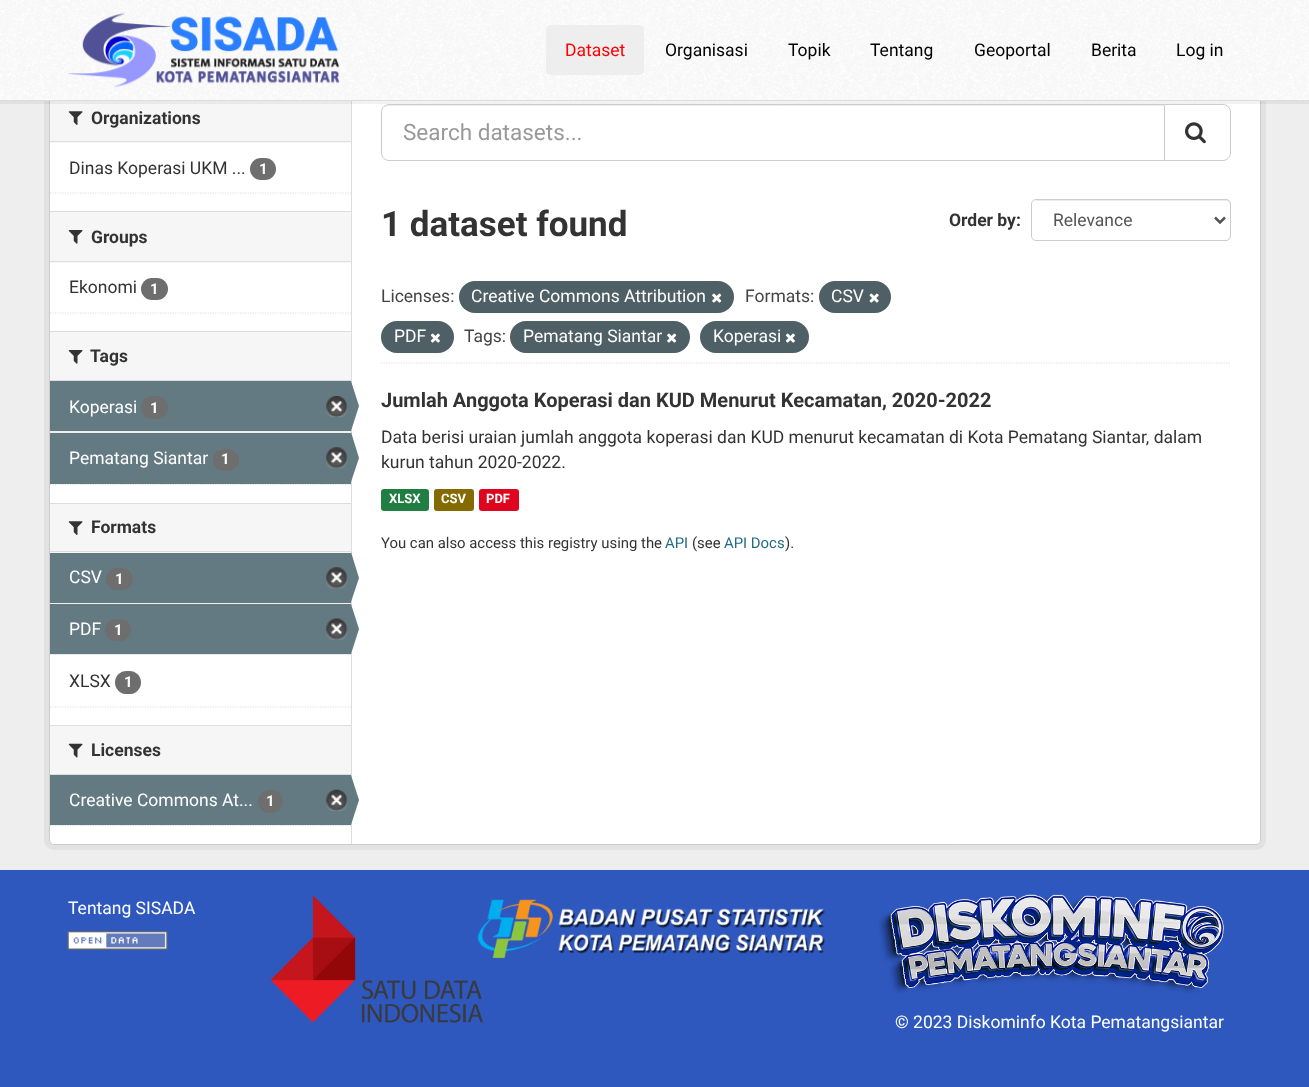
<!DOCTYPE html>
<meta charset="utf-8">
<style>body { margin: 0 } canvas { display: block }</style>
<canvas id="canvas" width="1309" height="1087"></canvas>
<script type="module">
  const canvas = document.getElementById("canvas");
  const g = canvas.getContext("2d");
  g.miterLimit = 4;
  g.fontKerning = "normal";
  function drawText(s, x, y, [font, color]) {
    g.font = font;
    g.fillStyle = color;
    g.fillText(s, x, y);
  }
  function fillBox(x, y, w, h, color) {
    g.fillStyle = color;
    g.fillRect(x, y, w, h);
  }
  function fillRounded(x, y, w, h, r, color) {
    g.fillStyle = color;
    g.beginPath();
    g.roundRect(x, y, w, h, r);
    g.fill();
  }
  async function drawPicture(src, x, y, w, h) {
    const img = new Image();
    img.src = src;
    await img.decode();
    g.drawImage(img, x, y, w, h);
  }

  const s1 = ["17.5px Roboto", "#FF0000"];
  const s2 = ["17.5px Roboto", "#000000"];
  const s3 = ["bold 17.5px Roboto", "#333333"];
  const s4 = ["17.5px Roboto", "#333333"];
  const s5 = ["bold 15px Roboto", "#FFFFFF"];
  const s6 = ["17.5px Roboto", "#FFFFFF"];
  const s7 = ["22.5px Roboto", "#999999"];
  const s8 = ["bold 35px Roboto", "#333333"];
  const s9 = ["17.5px Roboto", "#555555"];
  const s10 = ["17.5px Roboto", "#444444"];
  const s11 = ["bold 20px Roboto", "#333333"];
  const s12 = ["bold 13px Roboto", "#FFFFFF"];
  const s13 = ["14.9px Roboto", "#333333"];
  const s14 = ["14.9px Roboto", "#206B82"];

  fillBox(0, 0, 1309, 1087, "#EEEEEE");
  g.beginPath();
  g.roundRect(46.5, 90.5, 1217, 757, 7.5);
  g.strokeStyle = "#E2E2E2";
  g.lineWidth = 5;
  g.stroke();
  g.fillStyle = "#FFFFFF";
  g.beginPath();
  g.roundRect(49.5, 93.5, 1211, 751, 4.5);
  g.fill();
  g.strokeStyle = "#CCCCCC";
  g.lineWidth = 1;
  g.stroke();
  fillBox(50, 101, 301, 42, "#F6F6F6");
  fillBox(351, 94, 1, 750, "#DDDDDD");
  g.strokeStyle = "rgba(0, 0, 0, 0.05)";
  g.lineWidth = 3;
  g.strokeRect(-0.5, -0.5, 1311, 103);
  fillBox(0, 0, 1309, 100, "#FFFFFF");
  await drawPicture("pic1.png", 0, 0, 1309, 100);
  fillBox(0, 100, 1309, 1, "#DDDDDD");
  await drawPicture("pic2.png", 68, 13, 272, 75);
  fillRounded(546, 25, 98, 50, 5, "#EEEEEE");
  drawText("Dataset", 565, 56, s1);
  drawText("Organisasi", 665, 56, s2);
  drawText("Topik", 788, 56, s2);
  drawText("Tentang", 870, 56, s2);
  drawText("Geoportal", 974, 56, s2);
  drawText("Berita", 1091, 56, s2);
  drawText("Log in", 1176, 56, s2);
  fillBox(50, 141, 301, 1, "#DDDDDD");
  await drawPicture("pic3.png", 68, 111, 15, 14);
  drawText("Organizations", 91, 124, s3);
  drawText("Dinas Koperasi UKM ...", 69, 174, s4);
  fillRounded(250, 158, 26, 22, 11, "#6E6E6E");
  drawText("1", 259, 174, s5);
  g.beginPath();
  g.moveTo(50, 193);
  g.lineTo(351, 193);
  g.strokeStyle = "#DDDDDD";
  g.lineWidth = 1.2;
  g.setLineDash([1.25, 1.25]);
  g.stroke();
  fillBox(50, 212, 301, 51, "#F6F6F6");
  fillBox(50, 211, 301, 1, "#DDDDDD");
  fillBox(50, 261, 301, 1, "#DDDDDD");
  await drawPicture("pic4.png", 68, 230, 15, 14);
  drawText("Groups", 91, 243, s3);
  drawText("Ekonomi", 69, 293, s4);
  fillRounded(141, 278, 27, 22, 11, "#6E6E6E");
  drawText("1", 150, 294, s5);
  g.beginPath();
  g.moveTo(50, 313);
  g.lineTo(351, 313);
  g.stroke();
  fillBox(50, 332, 301, 48, "#F6F6F6");
  fillBox(50, 331, 301, 1, "#DDDDDD");
  fillBox(50, 380, 301, 1, "#DDDDDD");
  await drawPicture("pic4.png", 68, 350, 15, 14);
  drawText("Tags", 90, 362, s3);
  fillBox(50, 431, 301, 2, "#F6F6F6");
  g.beginPath();
  g.moveTo(50, 432);
  g.lineTo(351, 432);
  g.stroke();
  fillBox(50, 381, 301, 50, "#647A82");
  drawText("Koperasi", 69, 413, s6);
  fillRounded(141, 396, 27, 23, 11.5, "#6E6E6E");
  drawText("1", 150, 413, s5);
  await drawPicture("pic5.png", 326, 396, 22, 22);
  g.fillStyle = "#647A82";
  g.beginPath();
  g.moveTo(351, 431);
  g.lineTo(351, 381);
  g.lineTo(359, 406);
  g.closePath();
  g.fill();
  g.beginPath();
  g.moveTo(50, 484.5);
  g.lineTo(351, 484.5);
  g.stroke();
  fillBox(50, 433, 301, 51, "#647A82");
  drawText("Pematang Siantar", 69, 464, s6);
  fillRounded(213, 449, 26, 22, 11, "#6E6E6E");
  drawText("1", 221, 464, s5);
  await drawPicture("pic6.png", 326, 447, 22, 22);
  g.fillStyle = "#647A82";
  g.beginPath();
  g.moveTo(351, 482);
  g.lineTo(351, 432);
  g.lineTo(359, 458);
  g.closePath();
  g.fill();
  fillBox(50, 504, 301, 49, "#F6F6F6");
  fillBox(50, 503, 301, 1, "#DDDDDD");
  fillBox(50, 551, 301, 1, "#DDDDDD");
  await drawPicture("pic3.png", 68, 521, 15, 14);
  drawText("Formats", 91, 533, s3);
  fillBox(50, 603, 301, 1, "#F6F6F6");
  g.beginPath();
  g.moveTo(50, 603);
  g.lineTo(351, 603);
  g.stroke();
  fillBox(50, 553, 301, 50, "#647A82");
  drawText("CSV", 69, 583, s6);
  fillRounded(106, 568, 27, 22, 11, "#6E6E6E");
  drawText("1", 115, 584, s5);
  await drawPicture("pic6.png", 326, 567, 22, 22);
  g.fillStyle = "#647A82";
  g.beginPath();
  g.moveTo(351, 602);
  g.lineTo(351, 552);
  g.lineTo(359, 578);
  g.closePath();
  g.fill();
  fillBox(51, 654, 299, 1, "#F6F6F6");
  g.beginPath();
  g.moveTo(50, 654.5);
  g.lineTo(351, 654.5);
  g.stroke();
  fillBox(50, 604, 301, 50, "#647A82");
  drawText("PDF", 69, 635, s6);
  fillRounded(105, 619, 26, 22, 11, "#6E6E6E");
  drawText("1", 114, 635, s5);
  await drawPicture("pic7.png", 326, 618, 22, 22);
  g.fillStyle = "#647A82";
  g.beginPath();
  g.moveTo(351, 654);
  g.lineTo(351, 604);
  g.lineTo(359, 629);
  g.closePath();
  g.fill();
  drawText("XLSX", 69, 687, s4);
  fillRounded(115, 671, 26, 23, 11.5, "#6E6E6E");
  drawText("1", 124, 687, s5);
  g.beginPath();
  g.moveTo(50, 707);
  g.lineTo(351, 707);
  g.stroke();
  fillBox(50, 726, 301, 48, "#F6F6F6");
  fillBox(50, 725, 301, 1, "#DDDDDD");
  fillBox(50, 774, 301, 1, "#DDDDDD");
  await drawPicture("pic8.png", 68, 743, 15, 15);
  drawText("Licenses", 91, 756, s3);
  g.beginPath();
  g.moveTo(50, 825.5);
  g.lineTo(351, 825.5);
  g.stroke();
  fillBox(50, 775, 301, 50, "#647A82");
  drawText("Creative Commons At...", 69, 806, s6);
  fillRounded(258, 790, 25, 23, 11.5, "#6E6E6E");
  drawText("1", 266, 806, s5);
  await drawPicture("pic9.png", 326, 789, 22, 22);
  g.fillStyle = "#647A82";
  g.beginPath();
  g.moveTo(351, 825);
  g.lineTo(351, 775);
  g.lineTo(359, 800);
  g.closePath();
  g.fill();
  g.beginPath();
  g.moveTo(381, 363);
  g.lineTo(1231, 363);
  g.stroke();
  g.fillStyle = "#ECECEC";
  g.beginPath();
  g.moveTo(389, 106);
  g.lineTo(1164, 106);
  g.lineTo(1164, 105);
  g.lineTo(389, 105);
  g.bezierCurveTo(387, 105, 385, 106, 384, 108);
  g.bezierCurveTo(385, 107, 387, 106, 389, 106);
  g.closePath();
  g.fill();
  g.beginPath();
  g.roundRect(381.5, 104.5, 783, 56, [7.5, 0, 0, 7.5]);
  g.strokeStyle = "#CCCCCC";
  g.lineWidth = 1;
  g.setLineDash([]);
  g.stroke();
  drawText("Search datasets...", 403, 140, s7);
  g.fillStyle = "#FFFFFF";
  g.beginPath();
  g.roundRect(1164.5, 104.5, 66, 56, [0, 7.5, 7.5, 0]);
  g.fill();
  g.stroke();
  await drawPicture("pic10.png", 1185, 122, 21, 22);
  drawText("1 dataset found", 381, 236, s8);
  drawText("Order by:", 949, 226, s3);
  g.fillStyle = "#ECECEC";
  g.beginPath();
  g.moveTo(1036, 201);
  g.lineTo(1226, 201);
  g.bezierCurveTo(1228, 201, 1230, 203, 1230, 205);
  g.lineTo(1230, 204);
  g.bezierCurveTo(1230, 202, 1228, 200, 1226, 200);
  g.lineTo(1037, 200);
  g.bezierCurveTo(1036, 200, 1034, 201, 1034, 202);
  g.closePath();
  g.fill();
  g.beginPath();
  g.roundRect(1031.5, 199.5, 199, 41, 4.5);
  g.stroke();
  g.beginPath();
  g.moveTo(1215, 217.5);
  g.lineTo(1220, 222.5);
  g.lineTo(1225, 217.5);
  g.strokeStyle = "#555555";
  g.lineWidth = 2.5;
  g.stroke();
  drawText("Relevance", 1053, 226, s9);
  drawText("Licenses:", 381, 302, s10);
  fillRounded(459, 281, 275, 32, 16, "#4E5F65");
  drawText("Creative Commons Attribution", 471, 302, s6);
  await drawPicture("pic11.png", 712, 293, 10, 10);
  drawText("Formats:", 745, 302, s10);
  fillRounded(819, 281, 72, 32, 16, "#4E5F65");
  drawText("CSV", 831, 302, s6);
  await drawPicture("pic12.png", 869, 293, 10, 10);
  fillRounded(381, 321, 73, 32, 16, "#4E5F65");
  drawText("PDF", 394, 342, s6);
  await drawPicture("pic13.png", 430, 333, 10, 10);
  drawText("Tags:", 464, 342, s10);
  fillRounded(510, 321, 180, 32, 16, "#4E5F65");
  drawText("Pematang Siantar", 523, 342, s6);
  await drawPicture("pic11.png", 667, 333, 10, 10);
  fillRounded(700, 321, 109, 32, 16, "#4E5F65");
  drawText("Koperasi", 713, 342, s6);
  await drawPicture("pic13.png", 785, 333, 10, 10);
  drawText("Jumlah Anggota Koperasi dan KUD Menurut Kecamatan, 2020-2022", 381, 407, s11);
  drawText("Data berisi uraian jumlah anggota koperasi dan KUD menurut kecamatan di Kota Pematang Siantar, dalam", 381, 443, s4);
  drawText("kurun tahun 2020-2022.", 381, 468, s4);
  fillRounded(381, 489, 48, 22, 3, "#207E42");
  drawText("XLSX", 389, 503, s12);
  fillRounded(434, 489, 40, 22, 3, "#856A00");
  drawText("CSV", 441, 503, s12);
  fillRounded(479, 489, 40, 22, 3, "#E0051E");
  drawText("PDF", 486, 503, s12);
  drawText("You can also access this registry using the", 381, 548, s13);
  drawText("API", 665, 548, s14);
  drawText("(see", 692, 548, s13);
  drawText("API Docs", 724, 548, s14);
  drawText(").", 785, 548, s13);
  fillBox(0, 870, 1309, 217, "#2F58BF");
  drawText("Tentang SISADA", 68, 914, s6);
  await drawPicture("pic14.png", 67, 931, 101, 19);
  await drawPicture("pic15.png", 270, 895, 213, 128);
  await drawPicture("pic16.png", 477, 899, 348, 60);
  await drawPicture("pic17.png", 878, 894, 346, 100);
  drawText("© 2023 Diskominfo Kota Pematangsiantar", 895, 1028, s6);
</script>
